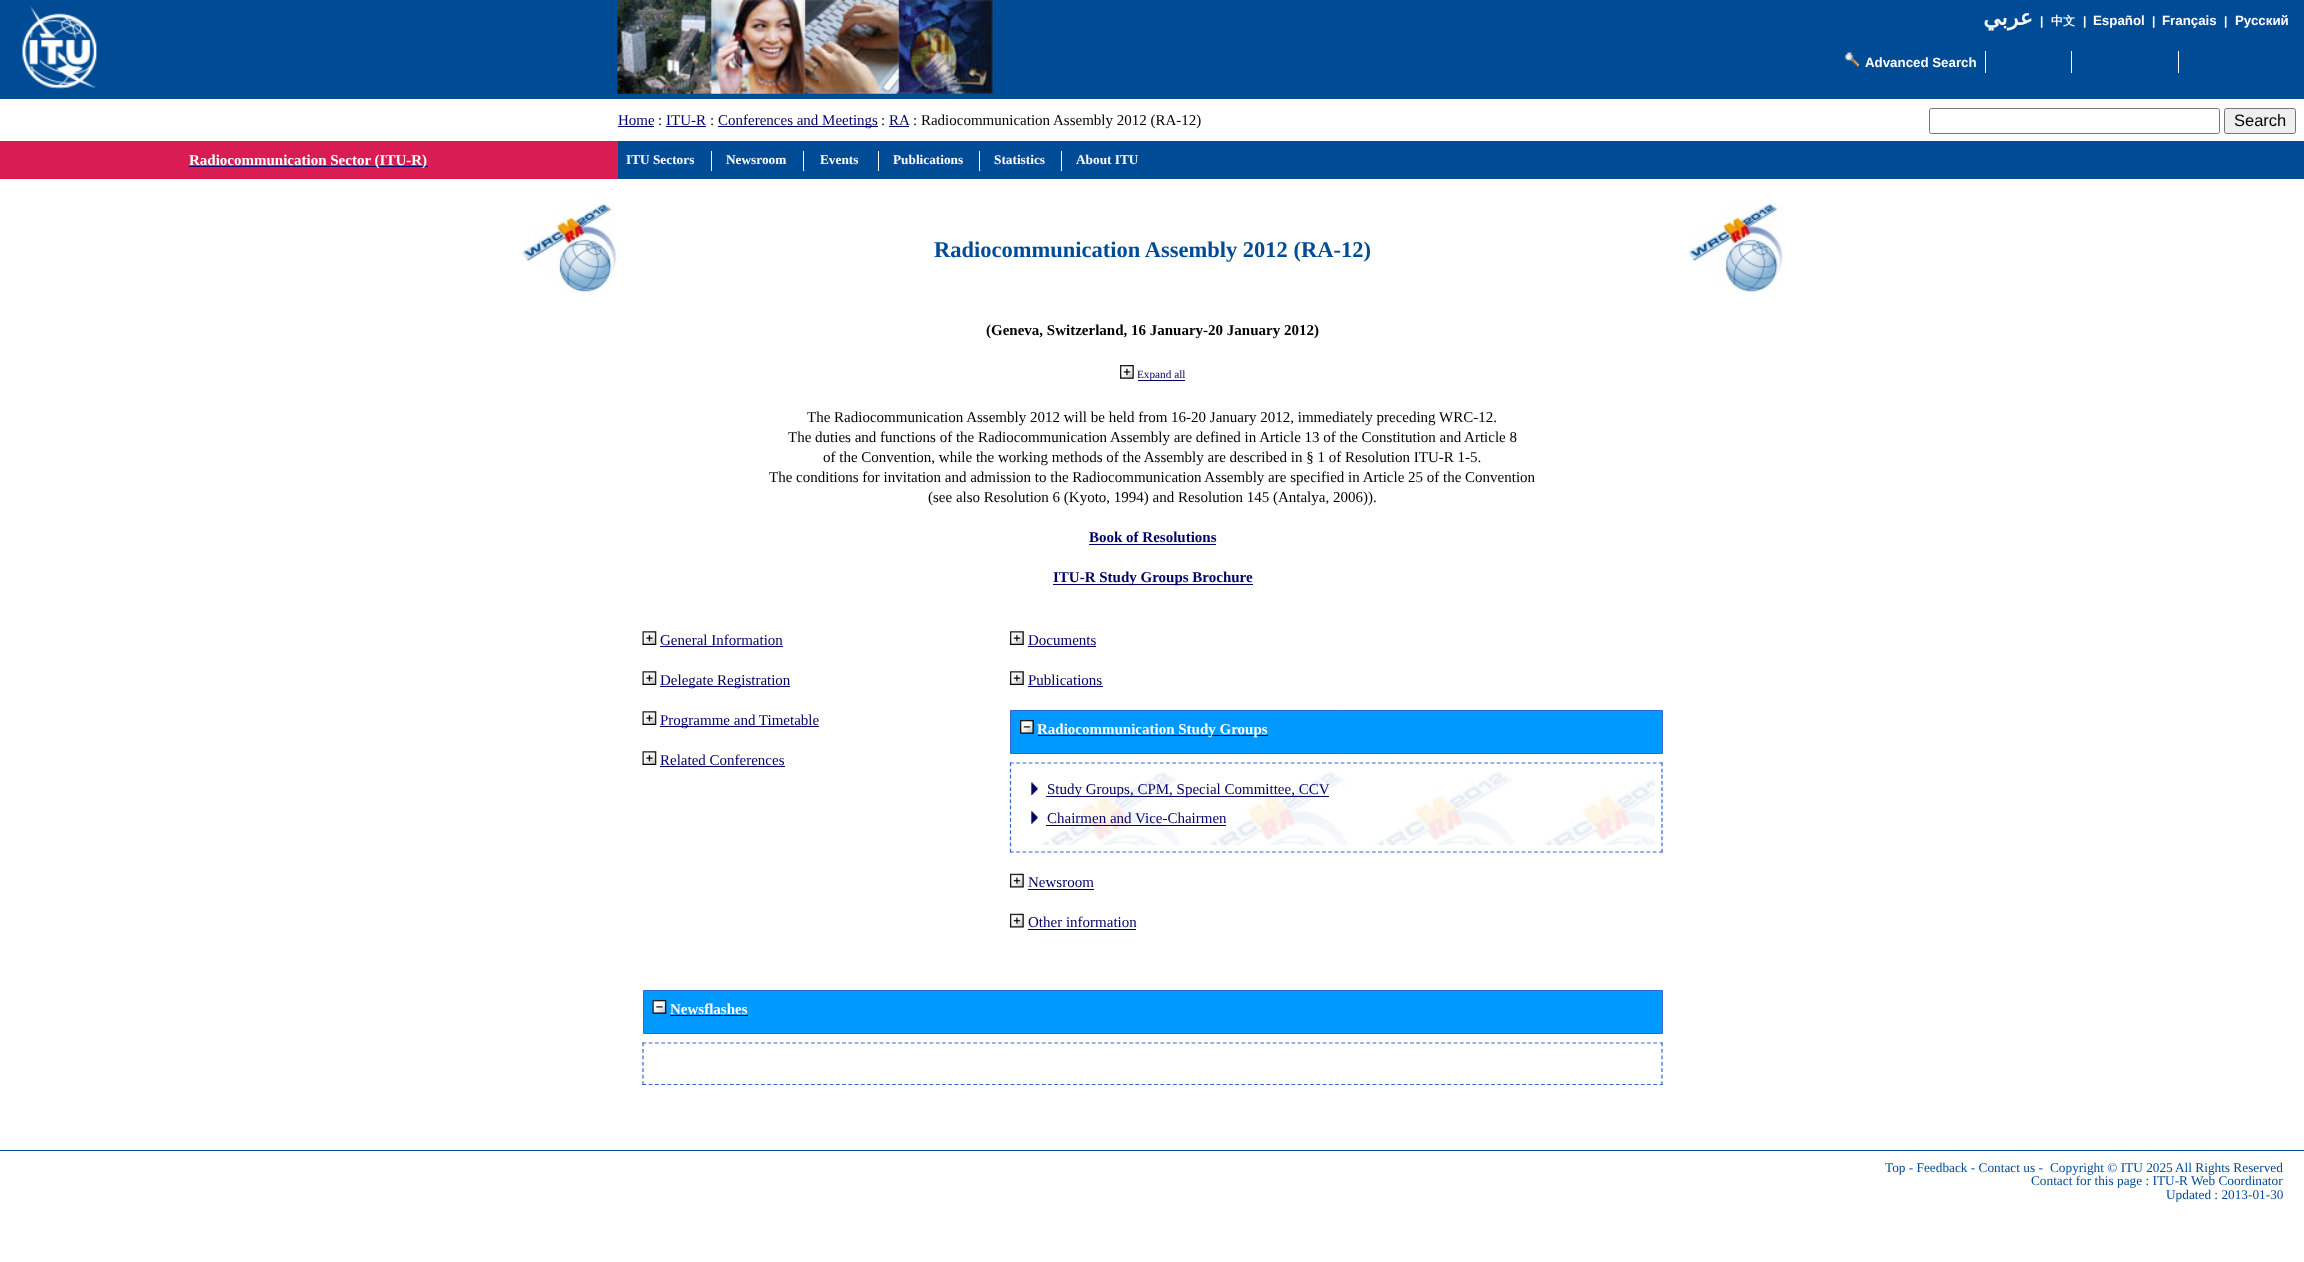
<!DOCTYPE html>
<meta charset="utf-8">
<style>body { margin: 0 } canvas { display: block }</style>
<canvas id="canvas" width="2304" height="1262"></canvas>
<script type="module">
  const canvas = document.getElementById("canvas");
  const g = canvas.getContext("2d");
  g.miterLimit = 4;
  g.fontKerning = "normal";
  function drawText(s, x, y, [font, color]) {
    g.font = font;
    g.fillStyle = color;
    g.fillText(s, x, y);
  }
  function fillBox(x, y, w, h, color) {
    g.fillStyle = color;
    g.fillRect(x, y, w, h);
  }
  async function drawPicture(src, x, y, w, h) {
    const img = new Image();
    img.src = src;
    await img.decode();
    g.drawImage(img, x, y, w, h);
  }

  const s1 = ["bold 22px DejaVu Sans", "#FFFFFF"];
  const s2 = ["bold 12px Liberation Sans", "#FFFFFF"];
  const s3 = ["bold 12px WenQuanYi Zen Hei", "#FFFFFF"];
  const s4 = ["bold 13.3px Liberation Sans", "#FFFFFF"];
  const s5 = ["15px Liberation Serif", "#000066"];
  const s6 = ["15px Liberation Serif", "#000000"];
  const s7 = ["16.5px Liberation Sans", "#000000"];
  const s8 = ["bold 15px Liberation Serif", "#FFFFFF"];
  const s9 = ["bold 22.5px Liberation Serif", "#004B96"];
  const s10 = ["bold 15px Liberation Serif", "#000000"];
  const s11 = ["11.25px Liberation Serif", "#000066"];
  const s12 = ["bold 15px Liberation Serif", "#000066"];
  const s13 = ["13.3px Liberation Serif", "#004B96"];
  const s14 = ["bold 13.3px Liberation Serif", "#FFFFFF"];

  fillBox(0, 0, 2304, 1262, "#FFFFFF");
  fillBox(0, 0, 2304, 99, "#004B96");
  await drawPicture("pic1.png", 22, 6, 76, 83);
  await drawPicture("pic2.png", 617, 0, 376, 94);
  g.direction = "rtl";
  drawText("عربي", 2033, 25, s1);
  g.direction = "ltr";
  drawText("|", 2040, 25, s2);
  drawText("中文", 2051, 25, s3);
  drawText("|", 2083, 25, s2);
  drawText("Español", 2093, 25, s4);
  drawText("|", 2152, 25, s2);
  drawText("Français", 2162, 25, s4);
  drawText("|", 2224, 25, s2);
  drawText("Русский", 2235, 25, s4);
  fillBox(1985, 51, 1, 22, "#FFFFFF");
  await drawPicture("pic3.png", 1844, 52, 15, 15);
  drawText("Advanced Search", 1865, 67, s4);
  fillBox(2071, 51, 1, 22, "#FFFFFF");
  fillBox(2178, 51, 1, 22, "#FFFFFF");
  drawText("Home", 618, 125, s5);
  fillBox(618, 126, 36, 1, "#000066");
  drawText(":", 658, 125, s6);
  drawText("ITU-R", 666, 125, s5);
  fillBox(666, 126, 40, 1, "#000066");
  drawText(":", 710, 125, s6);
  fillBox(718, 126, 160, 1, "#000066");
  drawText("Conferences and Meetings", 718, 125, s5);
  drawText(":", 881, 125, s6);
  drawText("RA", 889, 125, s5);
  fillBox(889, 126, 20, 1, "#000066");
  drawText(": Radiocommunication Assembly 2012 (RA-12)", 913, 125, s6);
  g.beginPath();
  g.roundRect(1929.5, 108.5, 290, 25, 2);
  g.strokeStyle = "#767676";
  g.stroke();
  g.fillStyle = "#EFEFEF";
  g.beginPath();
  g.roundRect(2224.5, 108.5, 71, 25, 2);
  g.fill();
  g.stroke();
  drawText("Search", 2234, 126, s7);
  fillBox(0, 141, 618, 38, "#D91D52");
  fillBox(189, 166, 239, 1, "#000066");
  drawText("Radiocommunication Sector (ITU-R)", 189, 165, s8);
  fillBox(618, 141, 1686, 38, "#004B96");
  fillBox(0, 1150, 2304, 1, "#004B96");
  await drawPicture("pic4.png", 522, 203, 95, 89);
  drawText("Radiocommunication Assembly 2012 (RA-12)", 934, 257, s9);
  await drawPicture("pic5.png", 1688, 203, 95, 89);
  drawText("(Geneva, Switzerland, 16 January-20 January 2012)", 986, 335, s10);
  await drawPicture("pic6.png", 1120, 365, 14, 14);
  fillBox(1138, 380, 47, 1, "#000066");
  drawText("Expand all", 1137, 378, s11);
  drawText("The Radiocommunication Assembly 2012 will be held from 16-20 January 2012, immediately preceding WRC-12.", 807, 422, s6);
  drawText("The duties and functions of the Radiocommunication Assembly are defined in Article 13 of the Constitution and Article 8", 788, 442, s6);
  drawText("of the Convention, while the working methods of the Assembly are described in § 1 of Resolution ITU-R 1-5.", 823, 462, s6);
  drawText("The conditions for invitation and admission to the Radiocommunication Assembly are specified in Article 25 of the Convention", 769, 482, s6);
  drawText("(see also Resolution 6 (Kyoto, 1994) and Resolution 145 (Antalya, 2006)).", 928, 502, s6);
  drawText("Book of Resolutions", 1089, 542, s12);
  fillBox(1089, 544, 127, 1, "#000066");
  fillBox(1053, 584, 200, 1, "#000066");
  drawText("ITU-R Study Groups Brochure", 1053, 582, s12);
  await drawPicture("pic7.png", 642, 631, 15, 14);
  drawText("General Information", 660, 645, s5);
  fillBox(660, 646, 123, 1, "#000066");
  await drawPicture("pic7.png", 642, 671, 15, 14);
  fillBox(660, 686, 130, 1, "#000066");
  drawText("Delegate Registration", 660, 685, s5);
  await drawPicture("pic7.png", 642, 711, 15, 14);
  fillBox(660, 726, 159, 1, "#000066");
  drawText("Programme and Timetable", 660, 725, s5);
  await drawPicture("pic7.png", 642, 751, 15, 14);
  drawText("Related Conferences", 660, 765, s5);
  fillBox(660, 766, 125, 1, "#000066");
  await drawPicture("pic8.png", 1010, 631, 14, 14);
  drawText("Documents", 1028, 645, s5);
  fillBox(1028, 646, 68, 1, "#000066");
  await drawPicture("pic8.png", 1010, 671, 14, 14);
  drawText("Publications", 1028, 685, s5);
  fillBox(1028, 686, 75, 1, "#000066");
  g.fillStyle = "#0099FF";
  g.beginPath();
  g.rect(1010.5, 710.5, 652, 43);
  g.fill();
  g.strokeStyle = "#3366CC";
  g.stroke();
  await drawPicture("pic9.png", 1020, 720, 14, 14);
  fillBox(1038, 735, 230, 1, "#000066");
  drawText("Radiocommunication Study Groups", 1037, 734, s8);
  g.beginPath();
  g.moveTo(1010, 763);
  g.lineTo(1662.5, 763);
  g.lineWidth = 1.2;
  g.setLineDash([3.75, 2.49]);
  g.stroke();
  g.beginPath();
  g.moveTo(1662, 762.5);
  g.lineTo(1662, 852.5);
  g.setLineDash([3.75, 2.41]);
  g.stroke();
  g.beginPath();
  g.moveTo(1010, 852);
  g.lineTo(1662.5, 852);
  g.setLineDash([3.75, 2.49]);
  g.stroke();
  g.beginPath();
  g.moveTo(1010.5, 762.5);
  g.lineTo(1010.5, 852.5);
  g.setLineDash([3.75, 2.41]);
  g.stroke();
  await drawPicture("pic10.png", 1040, 770, 615, 75);
  await drawPicture("pic11.png", 1031, 782, 7, 13);
  fillBox(1046, 796, 283, 1, "#000066");
  drawText("Study Groups, CPM, Special Committee, CCV", 1047, 794, s5);
  await drawPicture("pic12.png", 1031, 811, 7, 13);
  drawText("Chairmen and Vice-Chairmen", 1047, 823, s5);
  fillBox(1046, 825, 180, 1, "#000066");
  await drawPicture("pic13.png", 1010, 873, 14, 15);
  drawText("Newsroom", 1028, 887, s5);
  fillBox(1028, 889, 66, 1, "#000066");
  await drawPicture("pic13.png", 1010, 913, 14, 15);
  drawText("Other information", 1028, 927, s5);
  fillBox(1028, 929, 108, 1, "#000066");
  g.fillStyle = "#0099FF";
  g.beginPath();
  g.rect(643.5, 990.5, 1019, 43);
  g.fill();
  g.lineWidth = 1;
  g.setLineDash([]);
  g.stroke();
  await drawPicture("pic14.png", 652, 1000, 15, 14);
  drawText("Newsflashes", 670, 1014, s8);
  fillBox(670, 1015, 78, 1, "#000066");
  g.beginPath();
  g.moveTo(642.5, 1043);
  g.lineTo(1662.5, 1043);
  g.lineWidth = 1.2;
  g.setLineDash([3.75, 2.49]);
  g.stroke();
  g.beginPath();
  g.moveTo(1662, 1042.5);
  g.lineTo(1662, 1085);
  g.setLineDash([3.75, 2.71]);
  g.stroke();
  g.beginPath();
  g.moveTo(642.5, 1084.5);
  g.lineTo(1662.5, 1084.5);
  g.setLineDash([3.75, 2.49]);
  g.stroke();
  g.beginPath();
  g.moveTo(643, 1042.5);
  g.lineTo(643, 1085);
  g.setLineDash([3.75, 2.71]);
  g.stroke();
  drawText("Top - Feedback - Contact us -", 1885, 1172, s13);
  drawText("Copyright © ITU 2025", 2050, 1172, s13);
  drawText("All Rights Reserved", 2175, 1172, s13);
  drawText("Contact for this page : ITU-R Web Coordinator", 2031, 1185, s13);
  drawText("Updated : 2013-01-30", 2166, 1199, s13);
  drawText("ITU Sectors", 626, 164, s14);
  fillBox(711, 151, 1, 20, "#FFFFFF");
  drawText("Newsroom", 726, 164, s14);
  fillBox(803, 151, 1, 20, "#FFFFFF");
  drawText("Events", 820, 164, s14);
  fillBox(878, 151, 1, 20, "#FFFFFF");
  drawText("Publications", 893, 164, s14);
  fillBox(979, 151, 1, 20, "#FFFFFF");
  drawText("Statistics", 994, 164, s14);
  fillBox(1061, 151, 1, 20, "#FFFFFF");
  drawText("About ITU", 1076, 164, s14);
</script>
